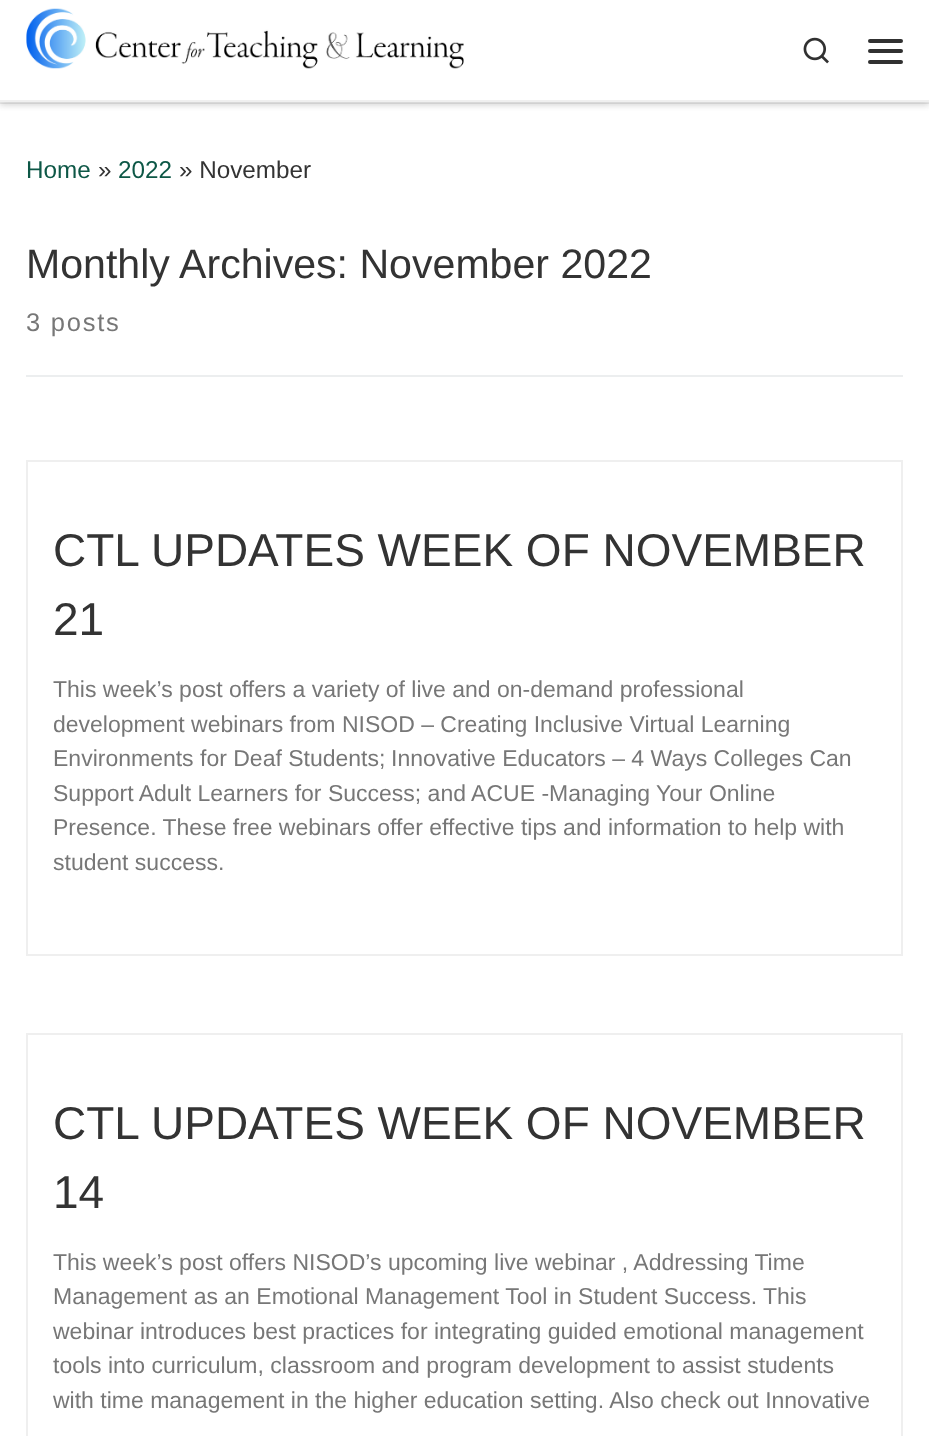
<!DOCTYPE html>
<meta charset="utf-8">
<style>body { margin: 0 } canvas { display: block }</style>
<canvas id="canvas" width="929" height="1436"></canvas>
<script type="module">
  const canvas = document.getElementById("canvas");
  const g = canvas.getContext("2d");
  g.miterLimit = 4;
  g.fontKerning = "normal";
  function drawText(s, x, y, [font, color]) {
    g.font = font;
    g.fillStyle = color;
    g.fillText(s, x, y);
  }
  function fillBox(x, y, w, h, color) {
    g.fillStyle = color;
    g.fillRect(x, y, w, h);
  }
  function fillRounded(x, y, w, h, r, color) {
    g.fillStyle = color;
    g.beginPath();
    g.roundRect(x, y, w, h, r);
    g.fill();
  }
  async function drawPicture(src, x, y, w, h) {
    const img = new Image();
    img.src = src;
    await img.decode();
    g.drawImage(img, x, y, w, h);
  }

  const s1 = ["24.25px Liberation Sans", "#0D5746"];
  const s2 = ["24.25px Liberation Sans", "#333333"];
  const s3 = ["41.1px Liberation Sans", "#333333"];
  const s4 = ["25.5px Liberation Sans", "#777777"];
  const s5 = ["46px Liberation Sans", "#333333"];
  const s6 = ["23px Liberation Sans", "#777777"];

  fillBox(0, 0, 929, 1436, "#FFFFFF");
  g.fillStyle = "rgba(102, 102, 102, 0.08)";
  g.filter = "blur(2px)";
  g.beginPath();
  g.rect(0, 4, 929, 103);
  g.fill();
  g.filter = "none";
  fillBox(0, 103, 929, 1, "rgba(49, 49, 49, 0.09)");
  fillBox(0, 102, 929, 1, "#EFEFEF");
  g.fillStyle = "rgba(0, 0, 0, 0.2)";
  g.filter = "blur(4.5px)";
  g.beginPath();
  g.rect(0, 0, 929, 102);
  g.fill();
  g.filter = "none";
  fillBox(0, 0, 929, 100, "#FFFFFF");
  await drawPicture("pic1.png", 26, 8, 438, 61);
  await drawPicture("pic2.png", 803, 37, 26, 27);
  fillRounded(868, 39, 35, 4, 2, "#313131");
  fillRounded(868, 49, 35, 4, 2, "#313131");
  fillRounded(868, 60, 35, 4, 2, "#313131");
  fillBox(0, 100, 929, 2, "#F0F0F0");
  drawText("Home", 26, 178, s1);
  drawText("»", 98, 178, s2);
  drawText("2022", 118, 178, s1);
  drawText("» November", 179, 178, s2);
  drawText("Monthly Archives: November 2022", 26, 278, s3);
  g.letterSpacing = "1.75px";
  drawText("3 posts", 26, 331, s4);
  fillBox(26, 375, 877, 2, "#ECEEEF");
  g.strokeStyle = "#EFEFEF";
  g.lineWidth = 2;
  g.strokeRect(27, 461, 875, 494);
  g.letterSpacing = "0px";
  drawText("CTL UPDATES WEEK OF NOVEMBER", 53, 566, s5);
  drawText("21", 53, 635, s5);
  drawText("This week’s post offers a variety of live and on-demand professional", 53, 697, s6);
  drawText("development webinars from NISOD – Creating Inclusive Virtual Learning", 53, 732, s6);
  drawText("Environments for Deaf Students;", 53, 766, s6);
  drawText("Innovative Educators – 4 Ways Colleges Can", 391, 766, s6);
  drawText("Support Adult Learners for Success; and ACUE -Managing Your Online", 53, 801, s6);
  drawText("Presence. These free webinars offer effective tips and information to help with", 53, 835, s6);
  drawText("student success.", 53, 870, s6);
  g.strokeRect(27, 1034, 875, 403);
  drawText("CTL UPDATES WEEK OF NOVEMBER", 53, 1139, s5);
  drawText("14", 53, 1208, s5);
  drawText("This week’s post offers NISOD’s upcoming live webinar , Addressing Time", 53, 1270, s6);
  drawText("Management as an Emotional Management Tool in Student Success. This", 53, 1304, s6);
  drawText("webinar introduces best practices for integrating guided emotional management", 53, 1339, s6);
  drawText("tools into curriculum, classroom and program development to assist students", 53, 1373, s6);
  drawText("with time management in the higher education setting. Also check out Innovative", 53, 1408, s6);
</script>
